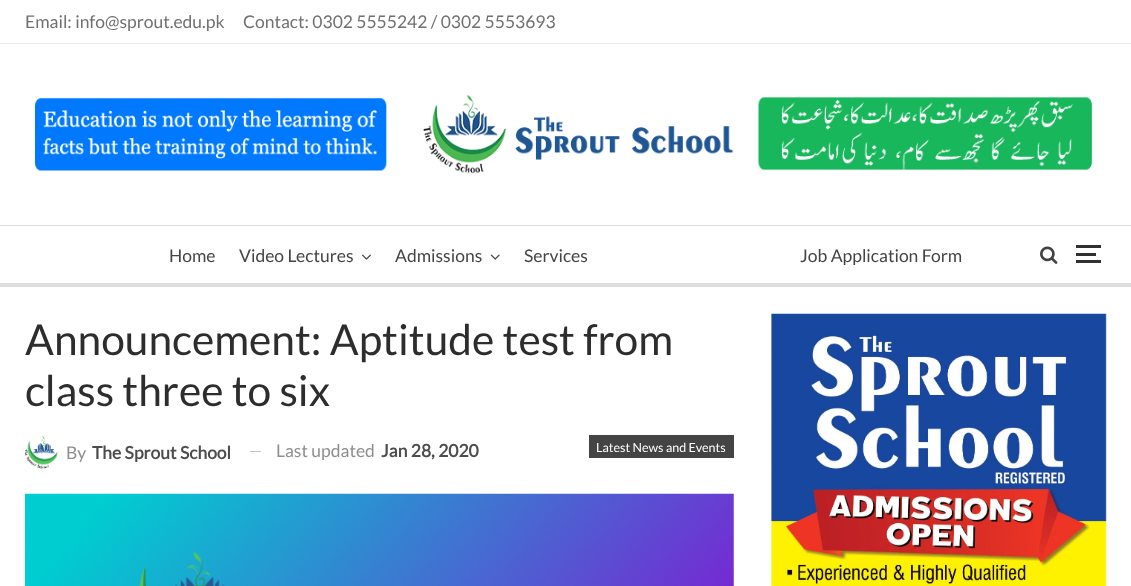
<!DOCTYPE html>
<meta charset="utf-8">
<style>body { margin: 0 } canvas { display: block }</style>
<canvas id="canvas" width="1131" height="586"></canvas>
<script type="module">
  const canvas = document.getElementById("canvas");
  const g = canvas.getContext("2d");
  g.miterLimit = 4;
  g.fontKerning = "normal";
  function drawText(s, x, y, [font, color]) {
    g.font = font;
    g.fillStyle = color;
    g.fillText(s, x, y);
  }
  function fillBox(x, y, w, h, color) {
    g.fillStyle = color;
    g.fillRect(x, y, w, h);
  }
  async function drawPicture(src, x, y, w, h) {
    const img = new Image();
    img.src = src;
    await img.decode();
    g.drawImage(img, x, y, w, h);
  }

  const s1 = ["17.5px Lato", "#707070"];
  const s2 = ["17.5px Lato", "#444444"];
  const s3 = ["42.5px Lato", "#2D2D2D"];
  const s4 = ["17.5px Lato", "#8F8F8F"];
  const s5 = ["bold 17.5px Lato", "#4D4D4D"];
  const s6 = ["12.5px Lato", "#FFFFFF"];

  fillBox(0, 0, 1131, 586, "#FFFFFF");
  fillBox(0, 43, 1131, 1, "#EDEDED");
  drawText("Email: info@sprout.edu.pk", 25, 28, s1);
  drawText("Contact: 0302 5555242 / 0302 5553693", 243, 28, s1);
  await drawPicture("pic1.png", 35, 94, 1057, 80);
  fillBox(0, 225, 1131, 1, "#DEDEDE");
  fillBox(0, 283, 1131, 4, "#DEDEDE");
  drawText("Home", 169, 262, s2);
  drawText("Video Lectures", 239, 262, s2);
  await drawPicture("pic2.png", 362, 254, 9, 6);
  drawText("Admissions", 395, 262, s2);
  await drawPicture("pic3.png", 490, 254, 10, 6);
  drawText("Services", 524, 262, s2);
  drawText("Job Application Form", 800, 262, s2);
  await drawPicture("pic4.png", 1040, 246, 18, 18);
  fillBox(1076, 253, 20, 3, "#313131");
  fillBox(1076, 245, 25, 3, "#313131");
  fillBox(1076, 260, 25, 3, "#313131");
  drawText("Announcement: Aptitude test from", 25, 355, s3);
  drawText("class three to six", 25, 406, s3);
  await drawPicture("pic5.png", 25, 436, 33, 33);
  drawText("By", 66, 459, s4);
  drawText("The Sprout School", 92, 459, s5);
  fillBox(250, 451, 11, 1, "#C4C4C4");
  drawText("Last updated", 276, 457, s4);
  drawText("Jan 28, 2020", 381, 457, s5);
  fillBox(589, 435, 145, 23, "#444444");
  drawText("Latest News and Events", 596, 452, s6);
  await drawPicture("pic6.png", 25, 493, 709, 93);
  await drawPicture("pic7.png", 771, 313, 336, 273);
</script>
